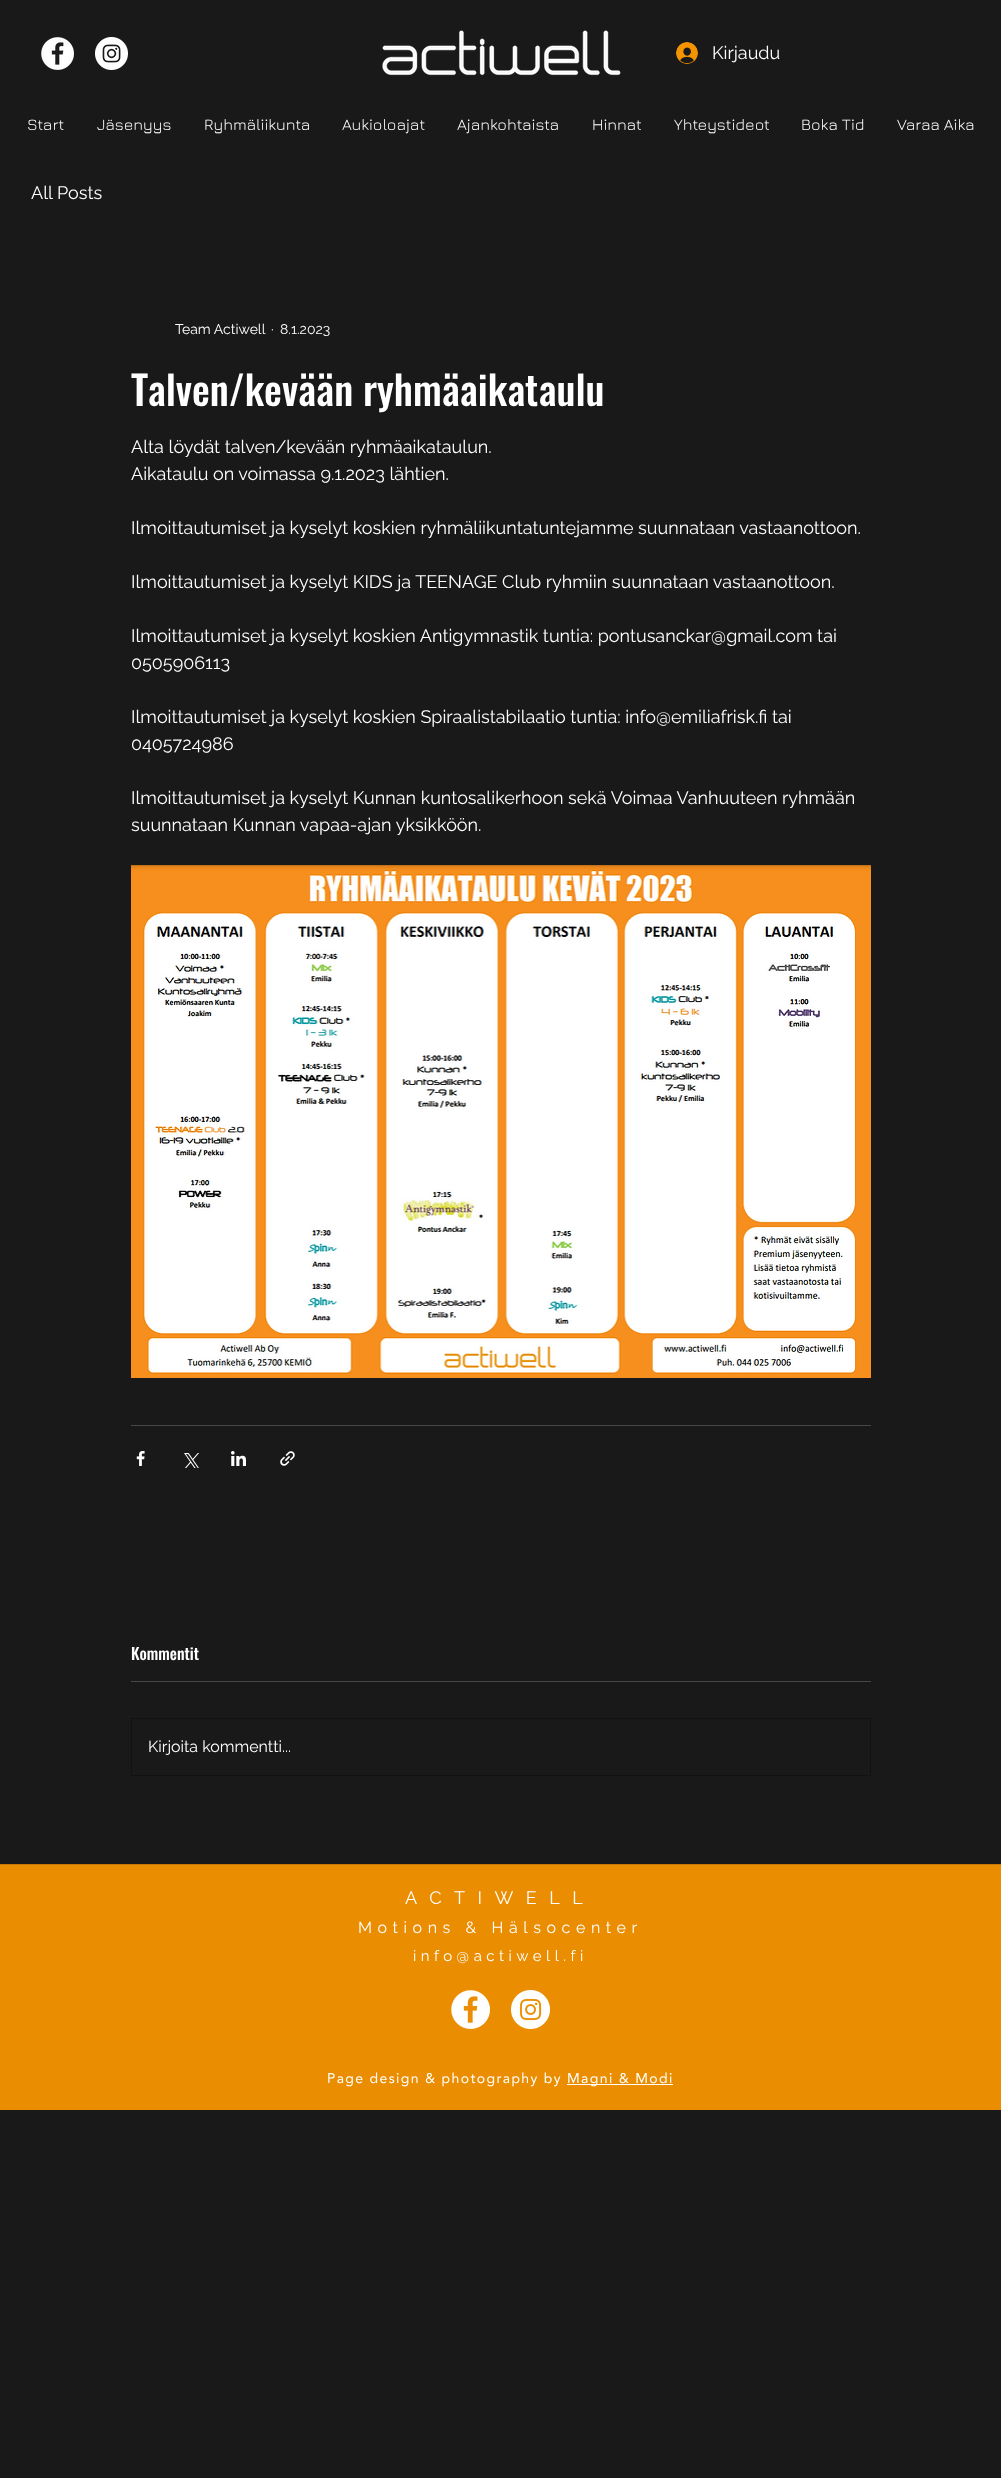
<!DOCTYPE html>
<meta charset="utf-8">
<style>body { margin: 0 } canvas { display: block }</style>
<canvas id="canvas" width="1001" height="2478"></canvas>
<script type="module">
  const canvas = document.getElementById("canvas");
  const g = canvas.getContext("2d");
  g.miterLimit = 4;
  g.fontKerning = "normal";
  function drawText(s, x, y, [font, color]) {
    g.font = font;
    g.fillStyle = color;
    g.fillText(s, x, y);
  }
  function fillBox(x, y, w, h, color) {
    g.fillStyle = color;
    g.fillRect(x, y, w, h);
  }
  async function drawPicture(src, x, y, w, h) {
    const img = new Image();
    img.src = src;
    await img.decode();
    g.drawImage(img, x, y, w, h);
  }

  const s1 = ["18px Raleway", "#FFFFFF"];
  const s2 = ["16px Jura", "#FFFFFF"];
  const s3 = ["14px Raleway", "#FFFFFF"];
  const s4 = ["500 40px Oswald", "#FFFFFF"];
  const s5 = ["500 16px Oswald", "#FFFFFF"];
  const s6 = ["16px Raleway", "#FFFFFF"];
  const s7 = ["15px Raleway", "#FFFFFF"];
  const s8 = ["14px 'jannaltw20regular'", "#FFFFFF"];

  fillBox(0, 0, 1001, 2478, "#191919");
  await drawPicture("pic1.png", 41, 37, 33, 33);
  await drawPicture("pic2.png", 95, 37, 33, 33);
  await drawPicture("pic3.png", 382, 30, 239, 46);
  await drawPicture("pic4.png", 676, 42, 22, 22);
  drawText("Kirjaudu", 712, 59, s1);
  drawText("Start", 27, 130, s2);
  drawText("Jäsenyys", 97, 130, s2);
  drawText("Ryhmäliikunta", 204, 130, s2);
  drawText("Aukioloajat", 342, 130, s2);
  drawText("Ajankohtaista", 457, 130, s2);
  drawText("Hinnat", 592, 130, s2);
  drawText("Yhteystideot", 674, 130, s2);
  drawText("Boka Tid", 801, 130, s2);
  drawText("Varaa Aika", 897, 130, s2);
  drawText("All Posts", 31, 199, s1);
  drawText("Team Actiwell", 175, 334, s3);
  drawText("·", 271, 334, s3);
  drawText("8.1.2023", 280, 334, s3);
  drawText("Talven/kevään ryhmäaikataulu", 131, 406, s4);
  drawText("Alta löydät talven/kevään ryhmäaikataulun.", 131, 453, s1);
  drawText("Aikataulu on voimassa 9.1.2023 lähtien.", 131, 480, s1);
  drawText("Ilmoittautumiset ja kyselyt koskien ryhmäliikuntatuntejamme suunnataan vastaanottoon.", 131, 534, s1);
  drawText("Ilmoittautumiset ja kyselyt KIDS ja TEENAGE Club ryhmiin suunnataan vastaanottoon.", 131, 588, s1);
  drawText("Ilmoittautumiset ja kyselyt koskien Antigymnastik tuntia: pontusanckar@gmail.com tai", 131, 642, s1);
  drawText("0505906113", 131, 669, s1);
  drawText("Ilmoittautumiset ja kyselyt koskien Spiraalistabilaatio tuntia: info@emiliafrisk.fi tai", 131, 723, s1);
  drawText("0405724986", 131, 750, s1);
  drawText("Ilmoittautumiset ja kyselyt Kunnan kuntosalikerhoon sekä Voimaa Vanhuuteen ryhmään", 131, 804, s1);
  drawText("suunnataan Kunnan vapaa-ajan yksikköön.", 131, 831, s1);
  await drawPicture("pic5.png", 131, 865, 740, 513);
  fillBox(131, 1425, 740, 1, "#474747");
  await drawPicture("pic6.png", 136, 1451, 9, 15);
  await drawPicture("pic7.png", 184, 1453, 15, 15);
  await drawPicture("pic8.png", 231, 1451, 15, 15);
  await drawPicture("pic9.png", 280, 1451, 15, 15);
  drawText("Kommentit", 131, 1660, s5);
  fillBox(131, 1681, 740, 1, "#474747");
  g.strokeStyle = "#121212";
  g.strokeRect(131.5, 1718.5, 739, 57);
  drawText("Kirjoita kommentti...", 148, 1752, s6);
  fillBox(0, 1865, 1001, 245, "#EB8D00");
  fillBox(0, 1864, 1001, 1, "#C87800");
  g.letterSpacing = "12.5px";
  drawText("ACTIWELL", 405, 1904, s1);
  g.letterSpacing = "5.6px";
  drawText("Motions & Hälsocenter", 358, 1933, s6);
  g.letterSpacing = "4.5px";
  drawText("info@actiwell.fi", 413, 1961, s7);
  await drawPicture("pic10.png", 451, 1990, 39, 39);
  await drawPicture("pic11.png", 511, 1990, 39, 39);
  g.letterSpacing = "1.4px";
  drawText("Page design & photography by", 327, 2083, s8);
  fillBox(567, 2084, 106, 1, "#FFFFFF");
  drawText("Magni & Modi", 567, 2083, s8);
</script>
